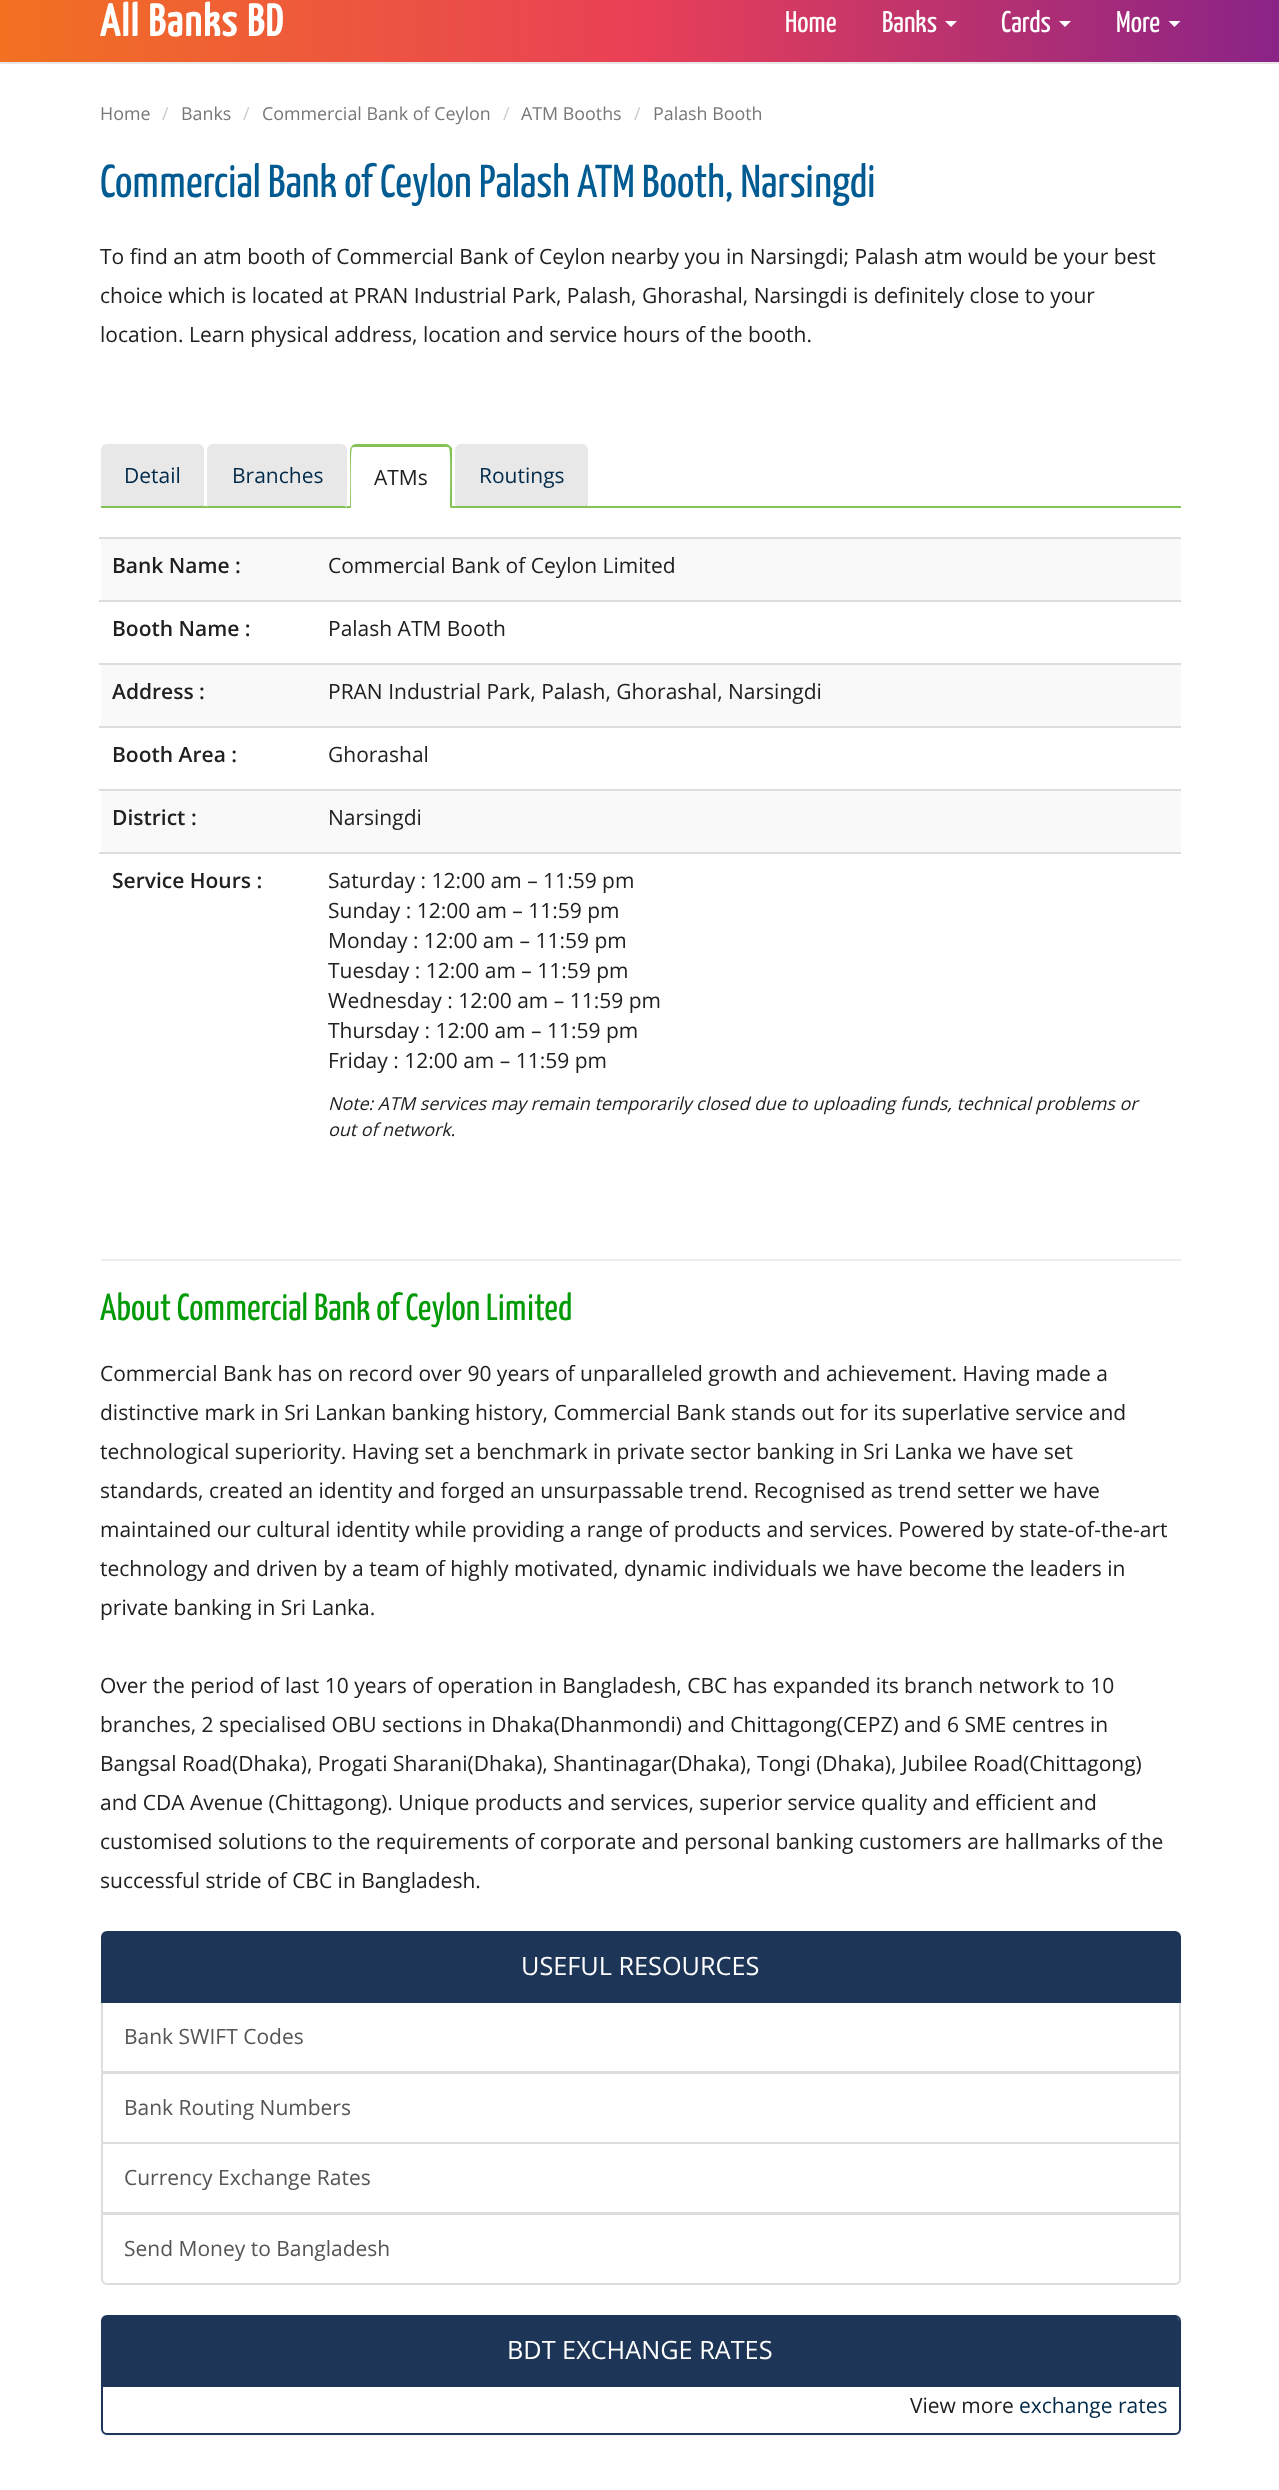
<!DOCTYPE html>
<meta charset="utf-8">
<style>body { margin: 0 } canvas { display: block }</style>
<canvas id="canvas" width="1279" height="2490"></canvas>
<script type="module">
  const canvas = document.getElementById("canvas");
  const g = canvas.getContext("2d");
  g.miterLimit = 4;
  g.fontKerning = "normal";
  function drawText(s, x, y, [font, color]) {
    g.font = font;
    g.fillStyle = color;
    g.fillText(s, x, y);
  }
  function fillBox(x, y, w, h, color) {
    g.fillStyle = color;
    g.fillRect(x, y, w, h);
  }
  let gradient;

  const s1 = ["bold 45px Yanone Kaffeesatz", "#FFFFFF"];
  const s2 = ["200 30px Yanone Kaffeesatz", "#FFFFFF"];
  const s3 = ["17.85px Open Sans", "#777777"];
  const s4 = ["17.85px Open Sans", "#CCCCCC"];
  const s5 = ["200 46.25px Yanone Kaffeesatz", "#005B92"];
  const s6 = ["21px Open Sans", "#202020"];
  const s7 = ["21px Open Sans", "#012A4A"];
  const s8 = ["600 21px Open Sans", "#202020"];
  const s9 = ["italic 17.85px Open Sans", "#202020"];
  const s10 = ["200 37.75px Yanone Kaffeesatz", "#029A06"];
  const s11 = ["25.25px Open Sans", "#FFFFFF"];
  const s12 = ["21px Open Sans", "#555555"];

  fillBox(0, 0, 1279, 2490, "#FFFFFF");
  gradient = g.createLinearGradient(0, 24, 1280, 24);
  gradient.addColorStop(0, "#F27121");
  gradient.addColorStop(0.5, "#E94057");
  gradient.addColorStop(1, "#8A2387");
  g.fillStyle = gradient;
  g.fillRect(0, 0, 1279, 62);
  fillBox(0, 62, 1279, 2, "#E7E7E7");
  g.letterSpacing = "1.5px";
  drawText("All Banks BD", 100, 36, s1);
  g.letterSpacing = "0px";
  drawText("Home", 785, 32, s2);
  drawText("Banks", 882, 32, s2);
  g.beginPath();
  g.moveTo(945, 21);
  g.lineTo(957, 21);
  g.lineTo(951, 27);
  g.closePath();
  g.fill();
  drawText("Cards", 1001, 32, s2);
  g.beginPath();
  g.moveTo(1059, 21);
  g.lineTo(1071, 21);
  g.lineTo(1065, 27);
  g.closePath();
  g.fill();
  drawText("More", 1116, 32, s2);
  g.beginPath();
  g.moveTo(1168.5, 21);
  g.lineTo(1180.5, 21);
  g.lineTo(1174.5, 27);
  g.closePath();
  g.fill();
  drawText("Home", 100, 120, s3);
  drawText("/", 162, 120, s4);
  drawText("Banks", 181, 120, s3);
  drawText("/", 243, 120, s4);
  drawText("Commercial Bank of Ceylon", 262, 120, s3);
  drawText("/", 503, 120, s4);
  drawText("ATM Booths", 521, 120, s3);
  drawText("/", 634, 120, s4);
  drawText("Palash Booth", 653, 120, s3);
  drawText("Commercial Bank of Ceylon Palash ATM Booth, Narsingdi", 100, 197, s5);
  drawText("To find an atm booth of Commercial Bank of Ceylon nearby you in Narsingdi; Palash atm would be your best", 100, 264, s6);
  drawText("choice which is located at PRAN Industrial Park, Palash, Ghorashal, Narsingdi is definitely close to your", 100, 303, s6);
  drawText("location. Learn physical address, location and service hours of the booth.", 100, 342, s6);
  fillBox(101, 506, 1080, 2, "#84C255");
  g.fillStyle = "#E8E8E8";
  g.beginPath();
  g.roundRect(101, 444, 103, 63, [6, 6, 0, 0]);
  g.fill();
  g.fillStyle = "#84C255";
  g.beginPath();
  g.moveTo(204, 507);
  g.lineTo(202, 505);
  g.lineTo(202, 506);
  g.lineTo(102, 506);
  g.lineTo(100, 507);
  g.closePath();
  g.fill();
  drawText("Detail", 124, 483, s7);
  g.fillStyle = "#E8E8E8";
  g.beginPath();
  g.roundRect(207, 444, 140, 63, [6, 6, 0, 0]);
  g.fill();
  g.fillStyle = "#84C255";
  g.beginPath();
  g.moveTo(346, 507);
  g.lineTo(345, 506);
  g.lineTo(208, 506);
  g.lineTo(207, 507);
  g.closePath();
  g.fill();
  drawText("Branches", 232, 483, s7);
  g.fillStyle = "#FFFFFF";
  g.beginPath();
  g.moveTo(356, 447);
  g.lineTo(446, 447);
  g.bezierCurveTo(448, 447, 450, 448, 450, 450);
  g.lineTo(450, 507);
  g.lineTo(351, 507);
  g.lineTo(351, 450);
  g.bezierCurveTo(351, 448, 353, 447, 356, 447);
  g.closePath();
  g.fill();
  g.fillStyle = "#84C255";
  g.beginPath();
  g.moveTo(356, 444);
  g.bezierCurveTo(354, 444, 352, 445, 351, 447);
  g.lineTo(352, 448);
  g.bezierCurveTo(352, 447, 354, 447, 356, 447);
  g.lineTo(446, 447);
  g.bezierCurveTo(447, 447, 449, 447, 449, 448);
  g.lineTo(450, 446);
  g.bezierCurveTo(449, 445, 448, 444, 446, 444);
  g.closePath();
  g.fill();
  g.beginPath();
  g.moveTo(452, 508);
  g.lineTo(450, 507);
  g.bezierCurveTo(450, 500, 451, 450, 449, 448);
  g.lineTo(450, 446);
  g.lineTo(452, 448);
  g.closePath();
  g.fill();
  g.fillStyle = "#FFFFFF";
  g.beginPath();
  g.moveTo(451, 508);
  g.lineTo(350, 508);
  g.lineTo(351, 507);
  g.lineTo(450, 507);
  g.closePath();
  g.fill();
  g.fillStyle = "#84C255";
  g.beginPath();
  g.moveTo(351, 447);
  g.lineTo(350, 450);
  g.lineTo(350, 508);
  g.lineTo(351, 507);
  g.bezierCurveTo(351, 501, 350, 450, 352, 448);
  g.closePath();
  g.fill();
  drawText("ATMs", 374, 485, s6);
  g.fillStyle = "#E8E8E8";
  g.beginPath();
  g.roundRect(455, 444, 133, 63, [6, 6, 0, 0]);
  g.fill();
  g.fillStyle = "#84C255";
  g.beginPath();
  g.moveTo(588, 507);
  g.lineTo(586, 505);
  g.lineTo(586, 506);
  g.lineTo(456, 506);
  g.lineTo(454, 507);
  g.closePath();
  g.fill();
  drawText("Routings", 479, 483, s7);
  fillBox(101, 539, 1080, 61, "#F9F9F9");
  drawText("Bank Name :", 112, 573, s8);
  fillBox(99, 537, 1082, 2, "#DDDDDD");
  drawText("Commercial Bank of Ceylon Limited", 328, 573, s6);
  drawText("Booth Name :", 112, 636, s8);
  fillBox(99, 600, 1082, 2, "#DDDDDD");
  drawText("Palash ATM Booth", 328, 636, s6);
  fillBox(101, 665, 1080, 61, "#F9F9F9");
  drawText("Address :", 112, 699, s8);
  fillBox(99, 663, 1082, 2, "#DDDDDD");
  drawText("PRAN Industrial Park, Palash, Ghorashal, Narsingdi", 328, 699, s6);
  drawText("Booth Area :", 112, 762, s8);
  fillBox(99, 726, 1082, 2, "#DDDDDD");
  drawText("Ghorashal", 328, 762, s6);
  fillBox(101, 791, 1080, 61, "#F9F9F9");
  drawText("District :", 112, 825, s8);
  fillBox(99, 789, 1082, 2, "#DDDDDD");
  drawText("Narsingdi", 328, 825, s6);
  drawText("Service Hours :", 112, 888, s8);
  fillBox(99, 852, 1082, 2, "#DDDDDD");
  drawText("Saturday : 12:00 am – 11:59 pm", 328, 888, s6);
  drawText("Sunday : 12:00 am – 11:59 pm", 328, 918, s6);
  drawText("Monday : 12:00 am – 11:59 pm", 328, 948, s6);
  drawText("Tuesday : 12:00 am – 11:59 pm", 328, 978, s6);
  drawText("Wednesday : 12:00 am – 11:59 pm", 328, 1008, s6);
  drawText("Thursday : 12:00 am – 11:59 pm", 328, 1038, s6);
  drawText("Friday : 12:00 am – 11:59 pm", 328, 1068, s6);
  drawText("Note: ATM services may remain temporarily closed due to uploading funds, technical problems or", 328, 1110, s9);
  drawText("out of network.", 328, 1136, s9);
  fillBox(101, 1259, 1080, 2, "#EEEEEE");
  drawText("About Commercial Bank of Ceylon Limited", 100, 1320, s10);
  drawText("Commercial Bank has on record over 90 years of unparalleled growth and achievement. Having made a", 100, 1381, s6);
  drawText("distinctive mark in Sri Lankan banking history, Commercial Bank stands out for its superlative service and", 100, 1420, s6);
  drawText("technological superiority. Having set a benchmark in private sector banking in Sri Lanka we have set", 100, 1459, s6);
  drawText("standards, created an identity and forged an unsurpassable trend. Recognised as trend setter we have", 100, 1498, s6);
  drawText("maintained our cultural identity while providing a range of products and services. Powered by state-of-the-art", 100, 1537, s6);
  drawText("technology and driven by a team of highly motivated, dynamic individuals we have become the leaders in", 100, 1576, s6);
  drawText("private banking in Sri Lanka.", 100, 1615, s6);
  drawText("Over the period of last 10 years of operation in Bangladesh, CBC has expanded its branch network to 10", 100, 1693, s6);
  drawText("branches, 2 specialised OBU sections in Dhaka(Dhanmondi) and Chittagong(CEPZ) and 6 SME centres in", 100, 1732, s6);
  drawText("Bangsal Road(Dhaka), Progati Sharani(Dhaka), Shantinagar(Dhaka), Tongi (Dhaka), Jubilee Road(Chittagong)", 100, 1771, s6);
  drawText("and CDA Avenue (Chittagong). Unique products and services, superior service quality and efficient and", 100, 1810, s6);
  drawText("customised solutions to the requirements of corporate and personal banking customers are hallmarks of the", 100, 1849, s6);
  drawText("successful stride of CBC in Bangladesh.", 100, 1888, s6);
  g.strokeStyle = "#DDDDDD";
  g.lineWidth = 2;
  g.strokeRect(102, 2002, 1078, 70);
  g.fillStyle = "#1D3557";
  g.beginPath();
  g.roundRect(102, 1932, 1078, 70, [5, 5, 0, 0]);
  g.fill();
  g.strokeStyle = "#1D3557";
  g.stroke();
  drawText("USEFUL RESOURCES", 521, 1975, s11);
  drawText("Bank SWIFT Codes", 124, 2044, s12);
  g.strokeStyle = "#DDDDDD";
  g.strokeRect(102, 2073, 1078, 70);
  drawText("Bank Routing Numbers", 124, 2115, s12);
  g.strokeRect(102, 2143, 1078, 70);
  drawText("Currency Exchange Rates", 124, 2185, s12);
  g.fillStyle = "#FFFFFF";
  g.beginPath();
  g.roundRect(102, 2214, 1078, 70, [0, 0, 5, 5]);
  g.fill();
  g.stroke();
  drawText("Send Money to Bangladesh", 124, 2256, s12);
  g.fillStyle = "rgba(0, 0, 0, 0.05)";
  g.filter = "blur(1px)";
  g.beginPath();
  g.roundRect(101, 2316, 1080, 120, 6);
  g.fill();
  g.filter = "none";
  g.fillStyle = "#FFFFFF";
  g.beginPath();
  g.roundRect(102, 2316, 1078, 118, 5);
  g.fill();
  g.strokeStyle = "#1D3557";
  g.stroke();
  g.fillStyle = "#1D3557";
  g.beginPath();
  g.roundRect(102, 2316, 1077, 71, [5, 5, 0, 0]);
  g.fill();
  drawText("BDT EXCHANGE RATES", 507, 2359, s11);
  drawText("View more", 910, 2413, s6);
  drawText("exchange rates", 1019, 2413, s7);
</script>
